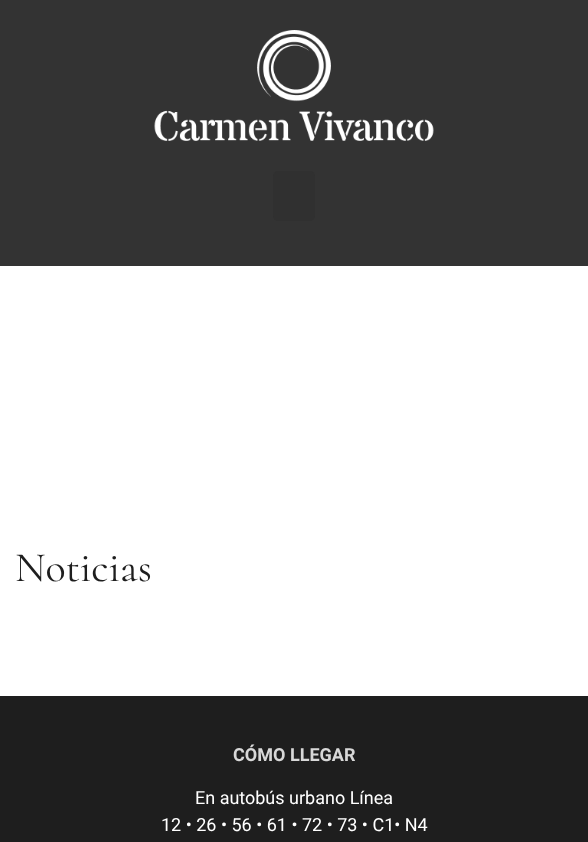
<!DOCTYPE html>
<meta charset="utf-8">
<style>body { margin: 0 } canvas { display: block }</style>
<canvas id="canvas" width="588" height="842"></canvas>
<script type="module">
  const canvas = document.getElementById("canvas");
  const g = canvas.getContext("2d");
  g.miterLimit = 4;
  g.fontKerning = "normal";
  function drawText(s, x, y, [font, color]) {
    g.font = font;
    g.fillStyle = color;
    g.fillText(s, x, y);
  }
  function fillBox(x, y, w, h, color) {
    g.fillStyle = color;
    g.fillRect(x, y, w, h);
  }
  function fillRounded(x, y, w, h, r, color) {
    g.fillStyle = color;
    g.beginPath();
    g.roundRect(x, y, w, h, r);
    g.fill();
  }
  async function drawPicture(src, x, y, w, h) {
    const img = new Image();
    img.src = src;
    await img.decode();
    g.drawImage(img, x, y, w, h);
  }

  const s1 = ["42px Cormorant", "#1E1E1E"];
  const s2 = ["bold 18px Heebo", "#D8D8D8"];
  const s3 = ["18px Heebo", "#FFFFFF"];

  fillBox(0, 0, 588, 842, "#FFFFFF");
  fillBox(0, 0, 588, 266, "#333333");
  await drawPicture("pic1.png", 154, 30, 280, 111);
  fillRounded(273, 171, 42, 50, 5, "#303030");
  drawText("Noticias", 15, 581, s1);
  fillBox(0, 696, 588, 146, "#1E1E1E");
  drawText("CÓMO LLEGAR", 233, 761, s2);
  drawText("En autobús urbano Línea", 195, 804, s3);
  drawText("12 • 26 • 56 • 61 • 72 • 73 • C1• N4", 161, 831, s3);
</script>
